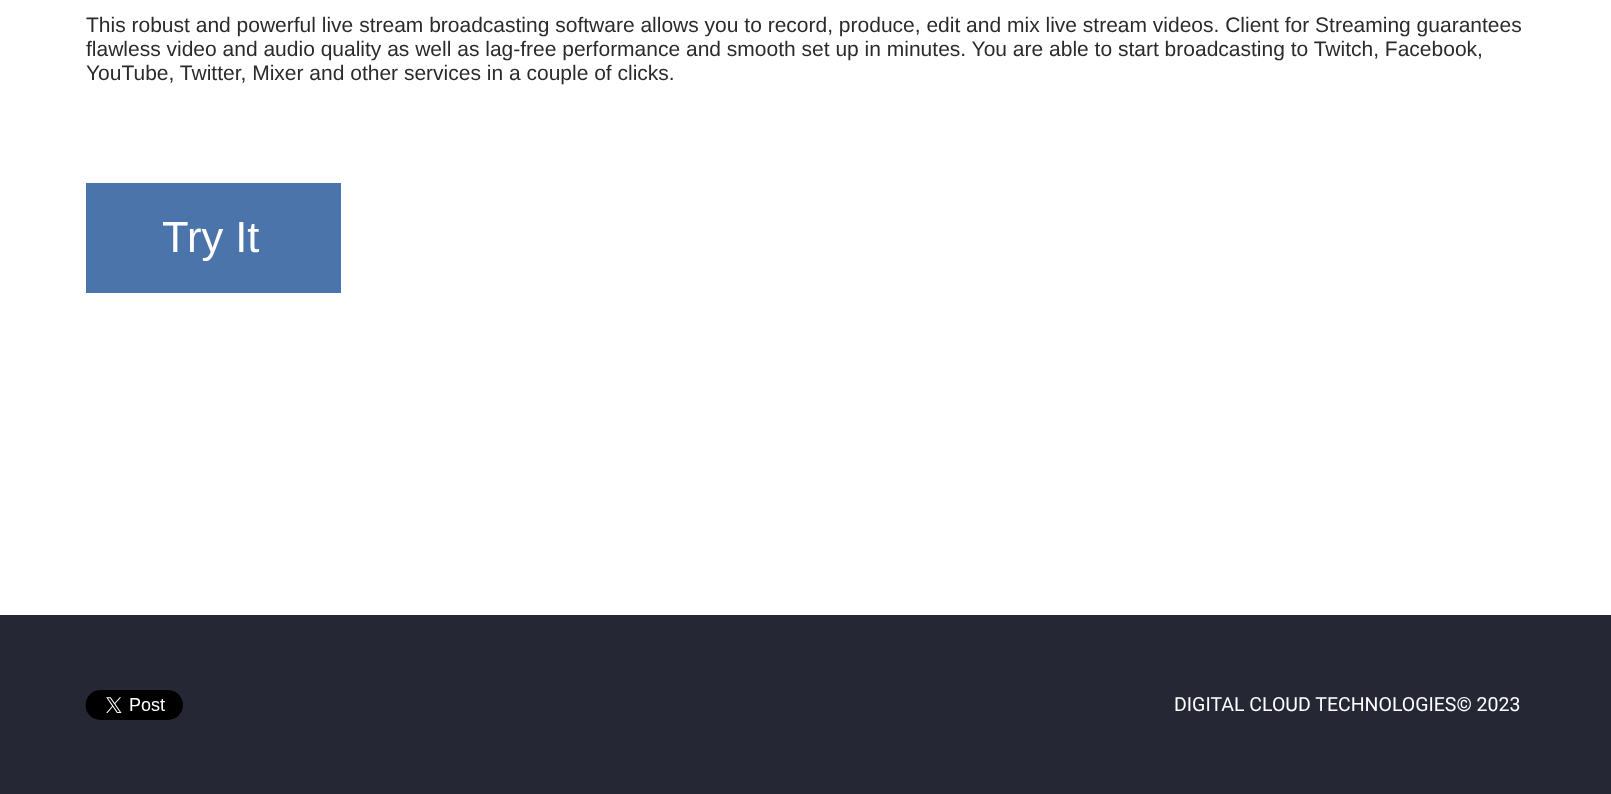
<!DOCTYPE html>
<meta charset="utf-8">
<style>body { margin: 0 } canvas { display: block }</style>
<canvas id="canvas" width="1611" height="794"></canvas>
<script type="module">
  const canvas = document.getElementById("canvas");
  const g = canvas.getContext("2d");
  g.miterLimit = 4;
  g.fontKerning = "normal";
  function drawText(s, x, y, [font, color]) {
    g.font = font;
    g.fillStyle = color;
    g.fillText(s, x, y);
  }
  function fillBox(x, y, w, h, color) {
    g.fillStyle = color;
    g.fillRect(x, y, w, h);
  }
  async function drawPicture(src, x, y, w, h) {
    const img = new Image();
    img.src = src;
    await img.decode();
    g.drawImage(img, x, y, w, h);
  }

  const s1 = ["21px Liberation Sans", "#2B2B2B"];
  const s2 = ["43.5px Liberation Sans", "#FFFFFF"];
  const s3 = ["19.5px Roboto", "#FFFFFF"];

  fillBox(0, 0, 1611, 794, "#252734");
  fillBox(0, 0, 1611, 615, "#FFFFFF");
  drawText("This robust and powerful live stream broadcasting software allows you to record, produce, edit and mix live stream videos. Client for Streaming guarantees", 86, 32, s1);
  drawText("flawless video and audio quality as well as lag-free performance and smooth set up in minutes. You are able to start broadcasting to Twitch, Facebook,", 86, 56, s1);
  drawText("YouTube, Twitter, Mixer and other services in a couple of clicks.", 86, 80, s1);
  fillBox(86, 183, 255, 110, "#4A74AA");
  drawText("Try It", 162, 252, s2);
  await drawPicture("pic1.png", 85, 690, 98, 30);
  drawText("DIGITAL CLOUD TECHNOLOGIES© 2023", 1174, 711, s3);
</script>
